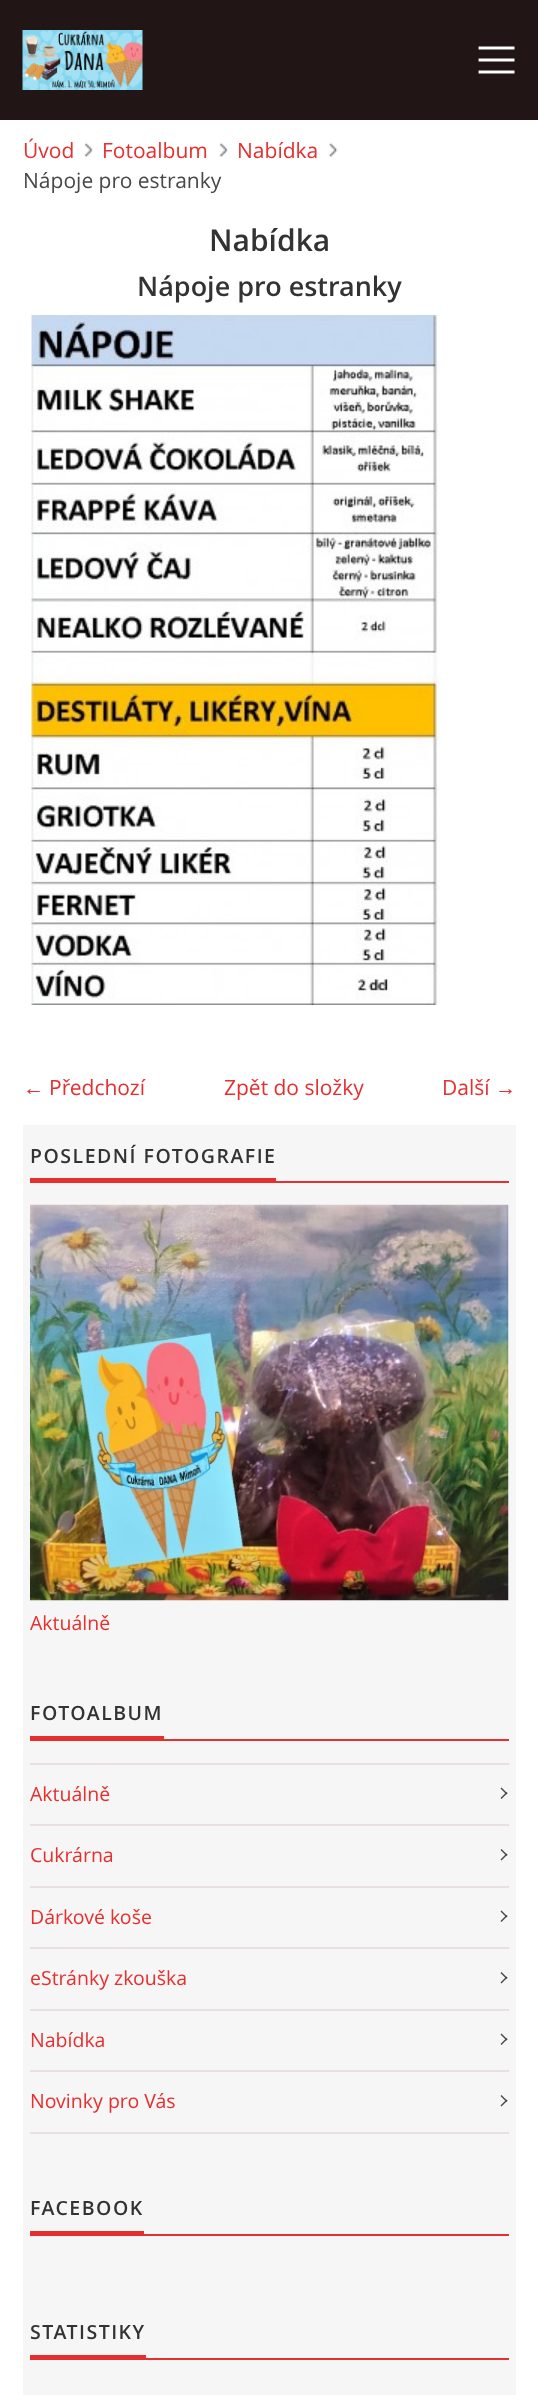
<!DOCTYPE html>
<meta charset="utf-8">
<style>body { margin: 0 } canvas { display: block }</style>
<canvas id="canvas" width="538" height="2395"></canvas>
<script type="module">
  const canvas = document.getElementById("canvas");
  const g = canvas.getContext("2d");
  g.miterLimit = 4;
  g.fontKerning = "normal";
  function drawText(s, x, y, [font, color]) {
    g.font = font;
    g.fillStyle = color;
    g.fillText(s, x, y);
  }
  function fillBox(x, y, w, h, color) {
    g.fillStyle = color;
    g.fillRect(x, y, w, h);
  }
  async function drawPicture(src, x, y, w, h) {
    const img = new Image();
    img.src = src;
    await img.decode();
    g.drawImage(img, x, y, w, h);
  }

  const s1 = ["21px Open Sans", "#E62F2F"];
  const s2 = ["21px Open Sans", "#484848"];
  const s3 = ["600 30px Open Sans", "#333333"];
  const s4 = ["600 27px Open Sans", "#333333"];
  const s5 = ["21px Liberation Serif", "#E62F2F"];
  const s6 = ["600 19.5px Open Sans", "#333333"];
  const s7 = ["19.5px Open Sans", "#E62F2F"];

  fillBox(0, 0, 538, 2395, "#FFFFFF");
  fillBox(0, 0, 538, 120, "#211515");
  await drawPicture("pic1.png", 22, 30, 121, 60);
  await drawPicture("pic2.png", 478, 46, 37, 28);
  await drawPicture("pic3.png", 84, 142, 9, 16);
  drawText("Úvod", 23, 158, s1);
  await drawPicture("pic3.png", 219, 142, 9, 16);
  drawText("Fotoalbum", 102, 158, s1);
  await drawPicture("pic4.png", 328, 142, 10, 16);
  drawText("Nabídka", 237, 158, s1);
  drawText("Nápoje pro estranky", 23, 188, s2);
  drawText("Nabídka", 209, 251, s3);
  drawText("Nápoje pro estranky", 137, 296, s4);
  await drawPicture("pic5.png", 31, 315, 409, 690);
  drawText("←", 23, 1095, s5);
  drawText("Předchozí", 49, 1095, s1);
  drawText("Zpět do složky", 224, 1095, s1);
  drawText("Další", 442, 1095, s1);
  drawText("→", 495, 1095, s5);
  fillBox(23, 1125, 493, 1270, "#F6F6F6");
  g.letterSpacing = "1.5px";
  drawText("POSLEDNÍ FOTOGRAFIE", 30, 1163, s6);
  fillBox(30, 1178, 246, 3, "#E62F2F");
  fillBox(30, 1181, 479, 2, "#E62F2F");
  await drawPicture("pic6.png", 30, 1204, 479, 397);
  g.letterSpacing = "0px";
  drawText("Aktuálně", 30, 1630, s7);
  g.letterSpacing = "1.5px";
  drawText("FOTOALBUM", 30, 1720, s6);
  fillBox(30, 1736, 134, 3, "#E62F2F");
  fillBox(30, 1739, 479, 2, "#E62F2F");
  fillBox(30, 1763, 479, 2, "#E8DFDF");
  fillBox(30, 1824, 479, 2, "#E8DFDF");
  g.letterSpacing = "0px";
  drawText("Aktuálně", 30, 1801, s7);
  g.fillStyle = "#484848";
  g.beginPath();
  g.moveTo(501.5, 1787.5);
  g.lineTo(507.5, 1793.5);
  g.lineTo(506.5, 1794.5);
  g.lineTo(500.5, 1788.5);
  g.closePath();
  g.fill();
  g.beginPath();
  g.moveTo(500.5, 1798);
  g.lineTo(506.5, 1792);
  g.lineTo(507.5, 1793);
  g.lineTo(501.5, 1799);
  g.closePath();
  g.fill();
  fillBox(30, 1886, 479, 2, "#E8DFDF");
  drawText("Cukrárna", 30, 1862, s7);
  g.fillStyle = "#484848";
  g.beginPath();
  g.moveTo(501.5, 1849);
  g.lineTo(507.5, 1855);
  g.lineTo(506.5, 1856);
  g.lineTo(500.5, 1850);
  g.closePath();
  g.fill();
  g.beginPath();
  g.moveTo(500.5, 1859.5);
  g.lineTo(506.5, 1853.5);
  g.lineTo(507.5, 1854.5);
  g.lineTo(501.5, 1860.5);
  g.closePath();
  g.fill();
  fillBox(30, 1947, 479, 2, "#E8DFDF");
  drawText("Dárkové koše", 30, 1924, s7);
  g.fillStyle = "#484848";
  g.beginPath();
  g.moveTo(501.5, 1910.5);
  g.lineTo(507.5, 1916.5);
  g.lineTo(506.5, 1917.5);
  g.lineTo(500.5, 1911.5);
  g.closePath();
  g.fill();
  g.beginPath();
  g.moveTo(500.5, 1921);
  g.lineTo(506.5, 1915);
  g.lineTo(507.5, 1916);
  g.lineTo(501.5, 1922);
  g.closePath();
  g.fill();
  fillBox(30, 2009, 479, 2, "#E8DFDF");
  drawText("eStránky zkouška", 30, 1985, s7);
  g.fillStyle = "#484848";
  g.beginPath();
  g.moveTo(501.5, 1972);
  g.lineTo(507.5, 1978);
  g.lineTo(506.5, 1979);
  g.lineTo(500.5, 1973);
  g.closePath();
  g.fill();
  g.beginPath();
  g.moveTo(500.5, 1982.5);
  g.lineTo(506.5, 1976.5);
  g.lineTo(507.5, 1977.5);
  g.lineTo(501.5, 1983.5);
  g.closePath();
  g.fill();
  fillBox(30, 2070, 479, 2, "#E8DFDF");
  drawText("Nabídka", 30, 2047, s7);
  g.fillStyle = "#484848";
  g.beginPath();
  g.moveTo(501.5, 2033.5);
  g.lineTo(507.5, 2039.5);
  g.lineTo(506.5, 2040.5);
  g.lineTo(500.5, 2034.5);
  g.closePath();
  g.fill();
  g.beginPath();
  g.moveTo(500.5, 2044);
  g.lineTo(506.5, 2038);
  g.lineTo(507.5, 2039);
  g.lineTo(501.5, 2045);
  g.closePath();
  g.fill();
  fillBox(30, 2132, 479, 2, "#E8DFDF");
  drawText("Novinky pro Vás", 30, 2108, s7);
  g.fillStyle = "#484848";
  g.beginPath();
  g.moveTo(501.5, 2095);
  g.lineTo(507.5, 2101);
  g.lineTo(506.5, 2102);
  g.lineTo(500.5, 2096);
  g.closePath();
  g.fill();
  g.beginPath();
  g.moveTo(500.5, 2105.5);
  g.lineTo(506.5, 2099.5);
  g.lineTo(507.5, 2100.5);
  g.lineTo(501.5, 2106.5);
  g.closePath();
  g.fill();
  g.letterSpacing = "1.5px";
  drawText("FACEBOOK", 30, 2215, s6);
  fillBox(30, 2231, 114, 3, "#E62F2F");
  fillBox(30, 2234, 479, 2, "#E62F2F");
  drawText("STATISTIKY", 30, 2339, s6);
  fillBox(30, 2355, 116, 3, "#E62F2F");
  fillBox(30, 2358, 479, 2, "#E62F2F");
</script>
